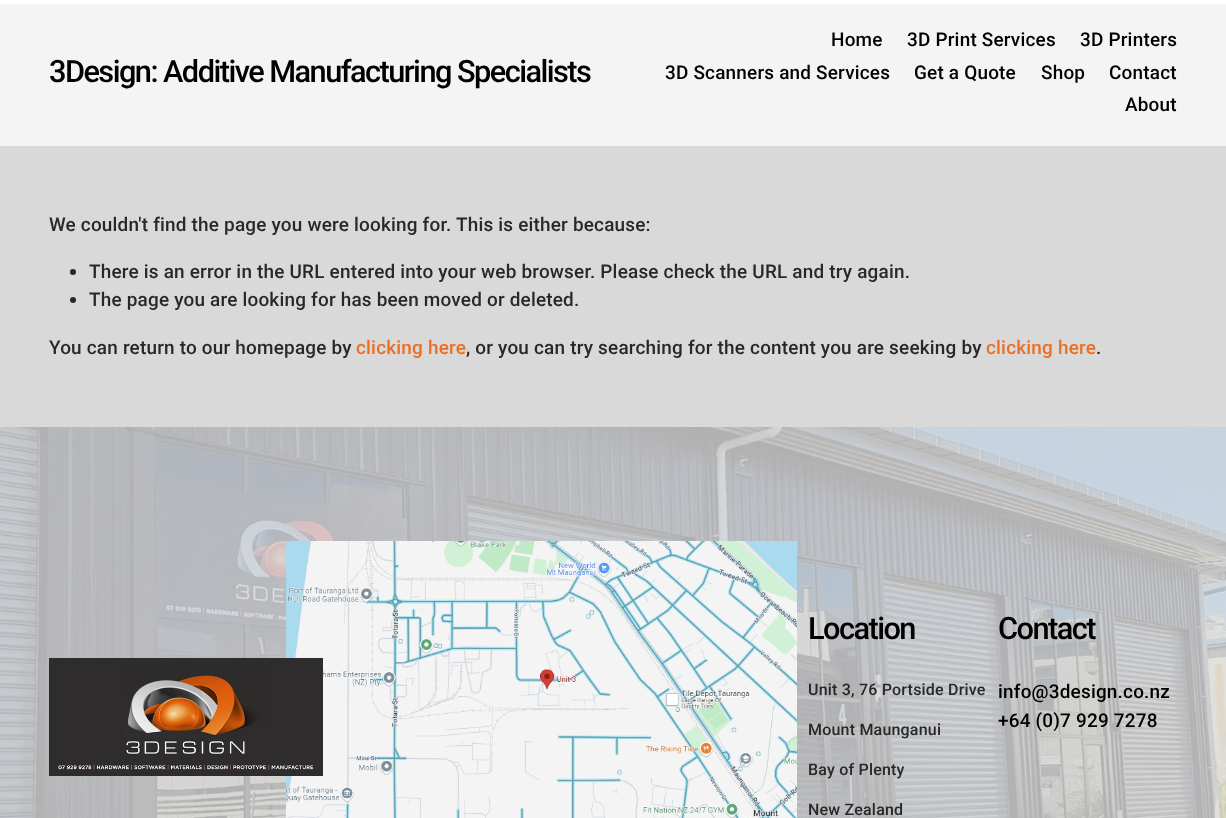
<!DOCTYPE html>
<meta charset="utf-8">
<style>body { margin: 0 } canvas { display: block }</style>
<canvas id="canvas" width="1226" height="818"></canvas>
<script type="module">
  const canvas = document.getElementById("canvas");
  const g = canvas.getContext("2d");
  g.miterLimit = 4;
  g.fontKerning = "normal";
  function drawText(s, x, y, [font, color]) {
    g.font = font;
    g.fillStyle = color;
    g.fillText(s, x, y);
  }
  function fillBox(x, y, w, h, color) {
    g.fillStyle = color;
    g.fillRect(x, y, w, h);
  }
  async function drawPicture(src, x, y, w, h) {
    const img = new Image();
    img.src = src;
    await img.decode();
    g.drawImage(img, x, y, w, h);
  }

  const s1 = ["500 30.75px Roboto", "#000000"];
  const s2 = ["500 18.95px Roboto", "#000000"];
  const s3 = ["500 18.95px Roboto", "#282828"];
  const s4 = ["500 18.95px Roboto", "#ED6D22"];
  const s5 = ["500 16px Roboto", "#282828"];

  fillBox(0, 0, 1226, 818, "#DAD9D9");
  fillBox(0, 0, 1226, 4, "#FFFFFF");
  fillBox(0, 4, 1226, 142, "#F5F4F4");
  g.letterSpacing = "-1.55px";
  drawText("3Design: Additive Manufacturing Specialists", 49, 82, s1);
  g.letterSpacing = "0.2px";
  drawText("Home", 831, 46, s2);
  drawText("3D Print Services", 907, 46, s2);
  drawText("3D Printers", 1080, 46, s2);
  drawText("3D Scanners and Services", 665, 79, s2);
  drawText("Get a Quote", 914, 79, s2);
  drawText("Shop", 1041, 79, s2);
  drawText("Contact", 1109, 79, s2);
  drawText("About", 1125, 111, s2);
  drawText("We couldn't find the page you were looking for. This is either because:", 49, 231, s3);
  g.beginPath();
  g.arc(73, 272, 3, 0, Math.PI * 2);
  g.fill();
  drawText("There is an error in the URL entered into your web browser. Please check the URL and try again.", 89, 278, s3);
  g.beginPath();
  g.arc(73, 300, 3, 0, Math.PI * 2);
  g.fill();
  drawText("The page you are looking for has been moved or deleted.", 89, 306, s3);
  drawText("You can return to our homepage by", 49, 354, s3);
  drawText("clicking here", 356, 354, s4);
  drawText(", or you can try searching for the content you are seeking by", 466, 354, s3);
  drawText("clicking here", 986, 354, s4);
  drawText(".", 1096, 354, s3);
  await drawPicture("pic1.png", 0, 427, 1226, 391);
  await drawPicture("pic3.png", 286, 541, 511, 277);
  await drawPicture("pic2.png", 49, 658, 274, 118);
  g.letterSpacing = "-1.55px";
  drawText("Location", 808, 639, s1);
  g.letterSpacing = "0.2px";
  drawText("Unit 3, 76 Portside Drive", 808, 695, s5);
  drawText("Mount Maunganui", 808, 735, s5);
  drawText("Bay of Plenty", 808, 775, s5);
  drawText("New Zealand", 808, 815, s5);
  g.letterSpacing = "-1.55px";
  drawText("Contact", 998, 639, s1);
  g.letterSpacing = "0.2px";
  drawText("info@3design.co.nz", 998, 698, s2);
  drawText("+64 (0)7 929 7278", 998, 727, s2);
</script>
